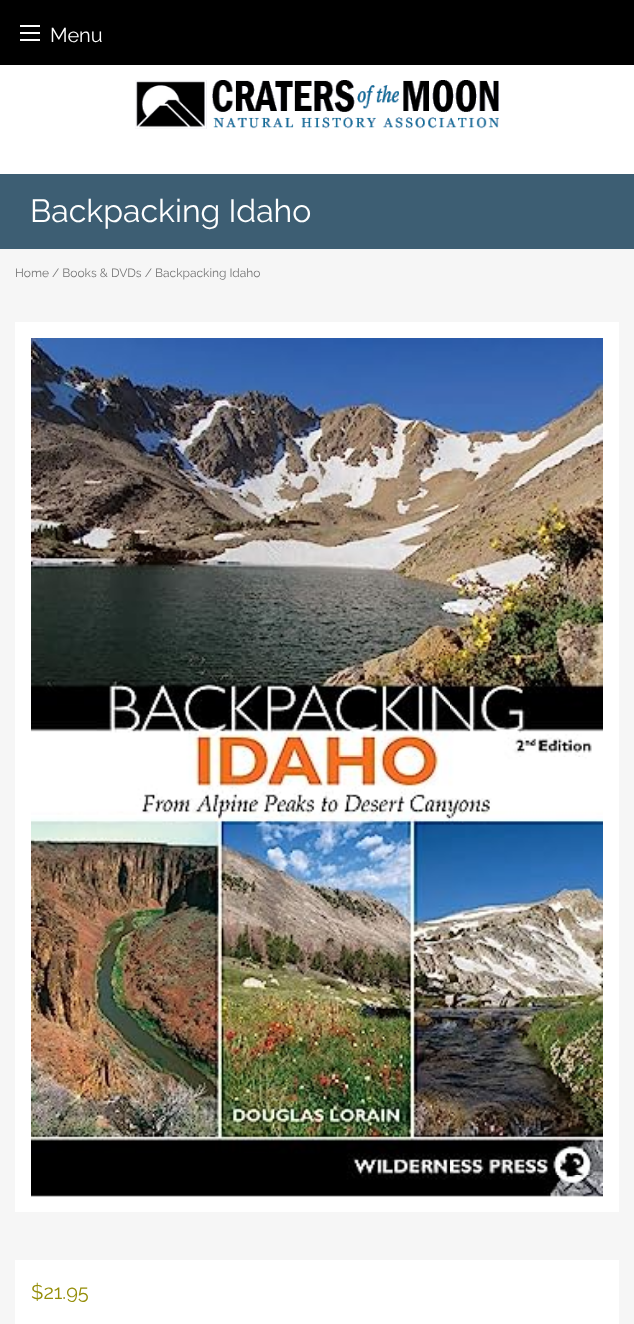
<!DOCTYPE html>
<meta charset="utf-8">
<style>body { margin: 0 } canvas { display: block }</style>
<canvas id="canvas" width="634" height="1324"></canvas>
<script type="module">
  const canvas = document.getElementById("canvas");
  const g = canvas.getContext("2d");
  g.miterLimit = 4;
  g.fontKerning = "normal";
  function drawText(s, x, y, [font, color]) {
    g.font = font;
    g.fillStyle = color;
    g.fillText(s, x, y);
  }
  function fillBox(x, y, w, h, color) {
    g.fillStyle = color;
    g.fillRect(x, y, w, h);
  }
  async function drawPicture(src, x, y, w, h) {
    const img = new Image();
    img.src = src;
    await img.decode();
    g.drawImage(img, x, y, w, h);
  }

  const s1 = ["20px Raleway", "#FFFFFF"];
  const s2 = ["32px Raleway", "#FFFFFF"];
  const s3 = ["12px Raleway", "#767676"];
  const s4 = ["20px Raleway", "#958E09"];

  fillBox(0, 0, 634, 1324, "#F6F6F6");
  fillBox(0, 0, 634, 65, "#000000");
  fillBox(20, 39, 20, 2, "#FEFEFE");
  fillBox(20, 32, 20, 2, "#FEFEFE");
  fillBox(20, 25, 20, 2, "#FEFEFE");
  drawText("Menu", 50, 42, s1);
  fillBox(0, 65, 634, 109, "#FFFFFF");
  await drawPicture("pic1.png", 135, 80, 364, 49);
  fillBox(0, 174, 634, 75, "#3D5E73");
  drawText("Backpacking Idaho", 30, 222, s2);
  drawText("Home / Books & DVDs / Backpacking Idaho", 15, 277, s3);
  fillBox(15, 322, 604, 890, "#FFFFFF");
  await drawPicture("pic2.png", 31, 338, 572, 859);
  fillBox(15, 1260, 604, 64, "#FFFFFF");
  drawText("$21.95", 31, 1299, s4);
</script>
